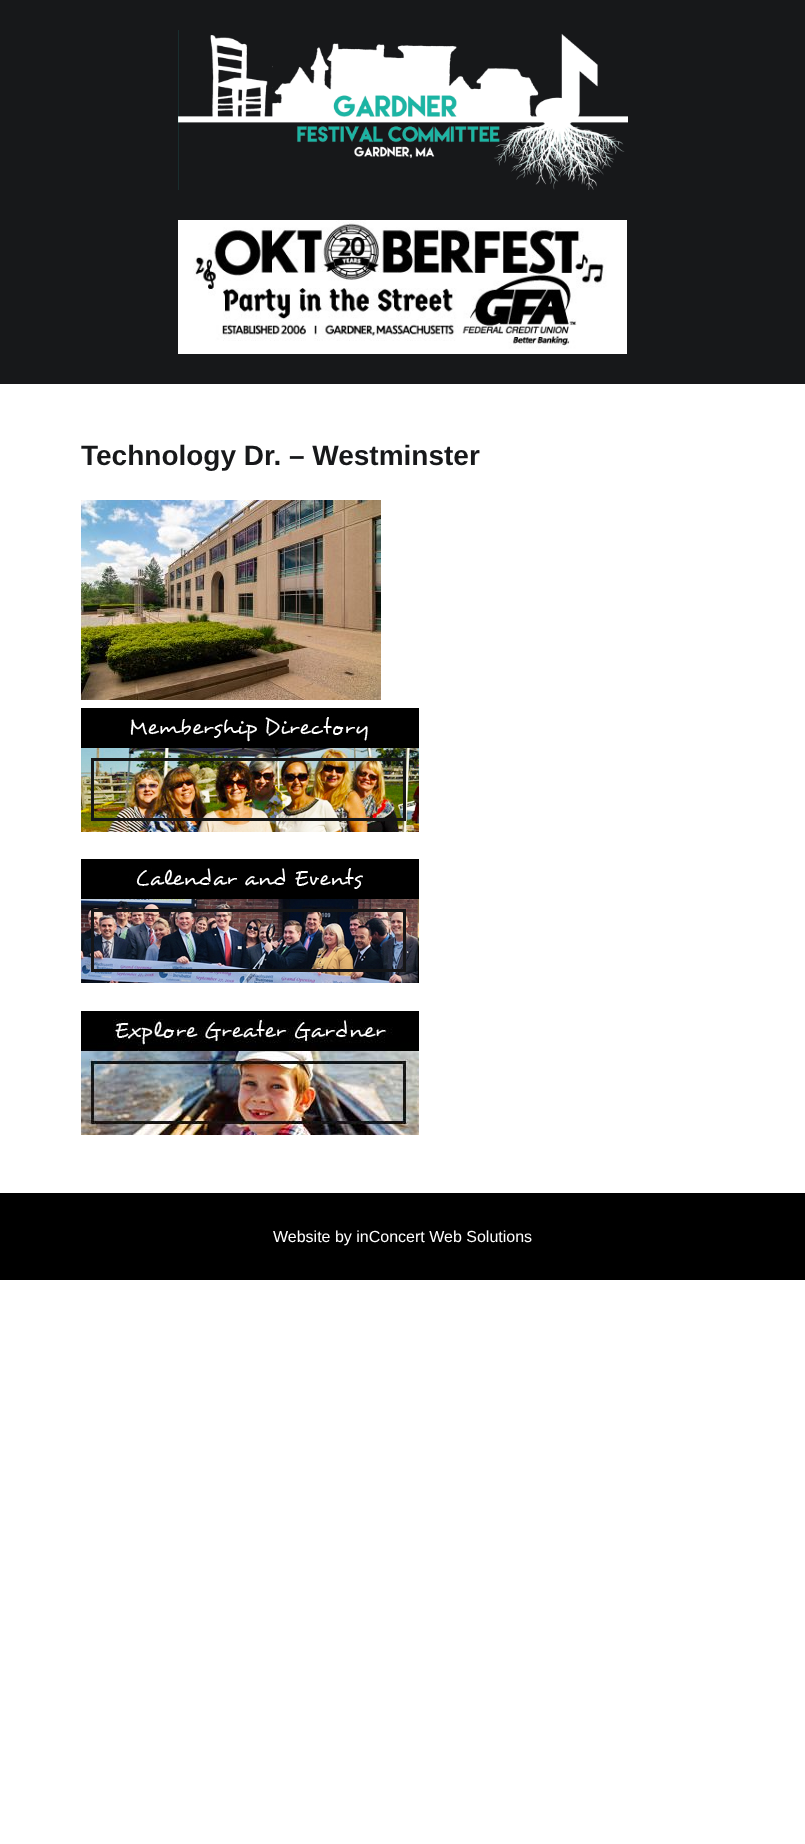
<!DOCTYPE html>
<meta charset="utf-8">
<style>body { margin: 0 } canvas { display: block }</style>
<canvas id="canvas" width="805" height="1844"></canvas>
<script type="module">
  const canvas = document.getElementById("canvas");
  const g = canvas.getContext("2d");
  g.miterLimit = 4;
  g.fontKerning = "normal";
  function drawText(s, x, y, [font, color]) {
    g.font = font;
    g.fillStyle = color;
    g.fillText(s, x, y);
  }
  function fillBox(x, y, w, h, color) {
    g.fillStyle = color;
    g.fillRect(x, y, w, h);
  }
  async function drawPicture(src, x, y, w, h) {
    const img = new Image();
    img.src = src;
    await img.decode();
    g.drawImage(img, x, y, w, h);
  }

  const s1 = ["bold 28px Liberation Sans", "#17181A"];
  const s2 = ["16px Liberation Sans", "#FFFFFF"];

  fillBox(0, 0, 805, 1844, "#FFFFFF");
  fillBox(0, 0, 805, 384, "#17181A");
  await drawPicture("pic1.png", 178, 30, 450, 160);
  await drawPicture("pic2.png", 178, 220, 449, 134);
  drawText("Technology Dr. – Westminster", 81, 465, s1);
  await drawPicture("pic3.png", 81, 500, 300, 200);
  await drawPicture("pic4.png", 81, 708, 338, 124);
  await drawPicture("pic5.png", 81, 859, 338, 124);
  await drawPicture("pic6.png", 81, 1011, 338, 124);
  fillBox(0, 1193, 805, 87, "#000000");
  drawText("Website by inConcert Web Solutions", 273, 1242, s2);
</script>
